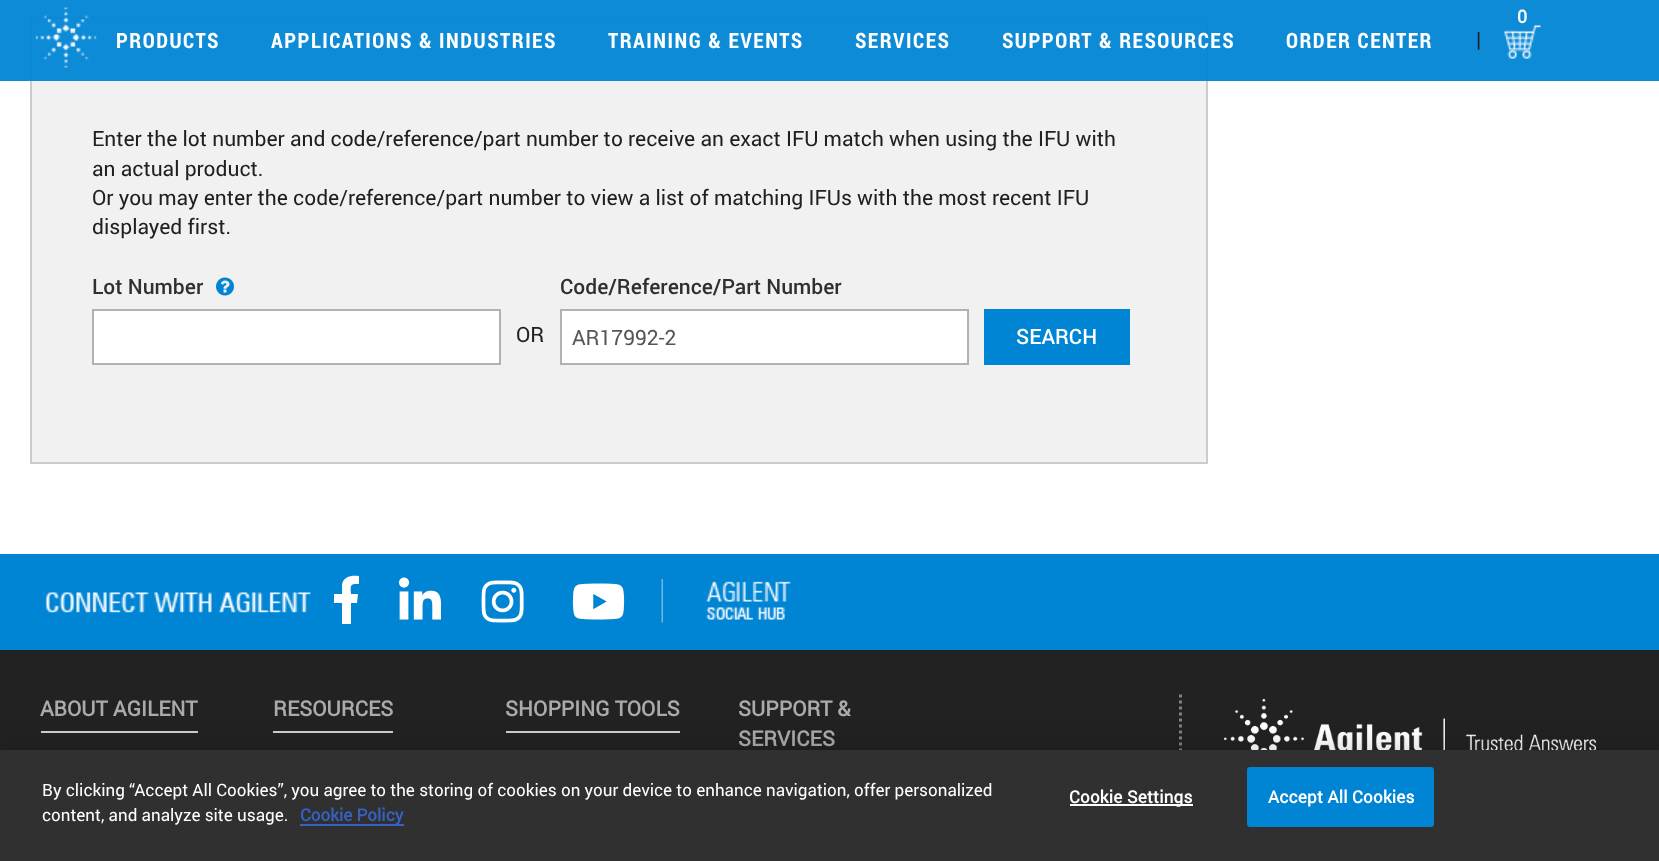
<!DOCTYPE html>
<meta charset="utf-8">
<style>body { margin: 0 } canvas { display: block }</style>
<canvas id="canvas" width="1659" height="861"></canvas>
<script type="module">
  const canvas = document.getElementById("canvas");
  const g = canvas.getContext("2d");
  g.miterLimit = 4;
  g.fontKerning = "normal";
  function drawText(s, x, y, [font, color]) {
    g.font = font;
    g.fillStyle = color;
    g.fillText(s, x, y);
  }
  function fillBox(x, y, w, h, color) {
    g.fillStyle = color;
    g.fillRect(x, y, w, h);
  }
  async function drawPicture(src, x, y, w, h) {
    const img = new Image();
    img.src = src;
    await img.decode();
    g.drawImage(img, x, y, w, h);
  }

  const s1 = ["bold 18px Roboto", "#FFFFFF"];
  const s2 = ["bold 21px Roboto Condensed", "#FFFFFF"];
  const s3 = ["21px Roboto", "#202020"];
  const s4 = ["500 21px Roboto", "#303030"];
  const s5 = ["21px Roboto", "#53565A"];
  const s6 = ["500 21px Roboto", "#FFFFFF"];
  const s7 = ["bold 21px Roboto", "#AAAAAA"];
  const s8 = ["17.07px Roboto", "#FFFFFF"];
  const s9 = ["bold 17.07px Roboto", "#3860BE"];
  const s10 = ["bold 17.07px Roboto", "#FFFFFF"];

  fillBox(0, 0, 1659, 861, "#FFFFFF");
  g.fillStyle = "#F1F1F1";
  g.beginPath();
  g.rect(31, 18, 1176, 445);
  g.fill();
  g.strokeStyle = "#CCCCCC";
  g.lineWidth = 2;
  g.stroke();
  fillBox(0, 0, 1659, 81, "rgba(0, 133, 213, 0.95)");
  await drawPicture("pic1.png", 35, 7, 62, 61);
  g.letterSpacing = "1.5px";
  drawText("0", 1517, 23, s1);
  await drawPicture("pic2.png", 1504, 25, 37, 34);
  drawText("PRODUCTS", 116, 48, s2);
  drawText("APPLICATIONS & INDUSTRIES", 271, 48, s2);
  drawText("TRAINING & EVENTS", 608, 48, s2);
  drawText("SERVICES", 855, 48, s2);
  drawText("SUPPORT & RESOURCES", 1002, 48, s2);
  drawText("ORDER CENTER", 1286, 48, s2);
  g.letterSpacing = "0px";
  drawText("|", 1476, 47, s3);
  drawText("Enter the lot number and code/reference/part number to receive an exact IFU match when using the IFU with", 92, 146, s3);
  drawText("an actual product.", 92, 176, s3);
  drawText("Or you may enter the code/reference/part number to view a list of matching IFUs with the most recent IFU", 92, 205, s3);
  drawText("displayed first.", 92, 234, s3);
  drawText("Lot Number", 92, 294, s4);
  await drawPicture("pic3.png", 216, 277, 18, 19);
  g.fillStyle = "#FFFFFF";
  g.beginPath();
  g.rect(93, 310, 407, 54);
  g.fill();
  g.strokeStyle = "#B1B3B3";
  g.stroke();
  drawText("Code/Reference/Part Number", 560, 294, s4);
  g.fillStyle = "#FFFFFF";
  g.beginPath();
  g.rect(561, 310, 407, 54);
  g.fill();
  g.stroke();
  drawText("AR17992-2", 572, 345, s5);
  drawText("OR", 516, 342, s3);
  fillBox(984, 309, 146, 56, "#0085D5");
  drawText("SEARCH", 1016, 344, s6);
  fillBox(0, 554, 1659, 96, "#0085D5");
  await drawPicture("pic4.png", 45, 592, 266, 21);
  g.fillStyle = "#FFFFFF";
  g.beginPath();
  g.moveTo(355, 584);
  g.bezierCurveTo(349, 584, 351, 590, 351, 594);
  g.lineTo(358, 594);
  g.lineTo(357, 603);
  g.lineTo(351, 603);
  g.lineTo(351, 624);
  g.lineTo(342, 624);
  g.lineTo(342, 603);
  g.lineTo(334, 603);
  g.lineTo(334, 594);
  g.lineTo(342, 594);
  g.lineTo(342, 585);
  g.bezierCurveTo(343, 576, 352, 575, 359, 576);
  g.lineTo(359, 584);
  g.closePath();
  g.fill();
  await drawPicture("pic5.png", 399, 577, 42, 43);
  await drawPicture("pic6.png", 481, 580, 43, 43);
  await drawPicture("pic7.png", 572, 583, 53, 37);
  await drawPicture("pic8.png", 661, 578, 2, 45);
  await drawPicture("pic9.png", 706, 581, 85, 39);
  fillBox(0, 650, 1659, 100, "#222222");
  drawText("ABOUT AGILENT", 40, 716, s7);
  fillBox(41, 731, 157, 2, "#CFCFCF");
  drawText("RESOURCES", 273, 716, s7);
  fillBox(273, 731, 120, 2, "#CFCFCF");
  drawText("SHOPPING TOOLS", 505, 716, s7);
  fillBox(506, 731, 174, 2, "#CFCFCF");
  drawText("SUPPORT &", 738, 716, s7);
  drawText("SERVICES", 738, 746, s7);
  g.beginPath();
  g.moveTo(1180.5, 694.5);
  g.lineTo(1180.5, 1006.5);
  g.strokeStyle = "#808080";
  g.lineWidth = 3;
  g.setLineDash([3, 3]);
  g.stroke();
  await drawPicture("pic10.png", 1224, 699, 372, 51);
  g.fillStyle = "rgba(0, 0, 0, 0.2)";
  g.filter = "blur(13.5px)";
  g.beginPath();
  g.rect(0, 750, 1659, 111);
  g.fill();
  g.filter = "none";
  fillBox(0, 750, 1659, 111, "#303030");
  drawText("By clicking “Accept All Cookies”, you agree to the storing of cookies on your device to enhance navigation, offer personalized", 42, 796, s8);
  drawText("content, and analyze site usage.", 42, 821, s8);
  fillBox(300, 824, 104, 2, "#3860BE");
  drawText("Cookie Policy", 300, 821, s9);
  fillBox(1070, 804, 123, 2, "#FFFFFF");
  g.letterSpacing = "0.2px";
  drawText("Cookie Settings", 1069, 803, s10);
  g.fillStyle = "#0085D5";
  g.beginPath();
  g.roundRect(1248, 768, 185, 58, 2);
  g.fill();
  g.strokeStyle = "#0085D5";
  g.lineWidth = 2;
  g.setLineDash([]);
  g.stroke();
  drawText("Accept All Cookies", 1268, 803, s10);
</script>
